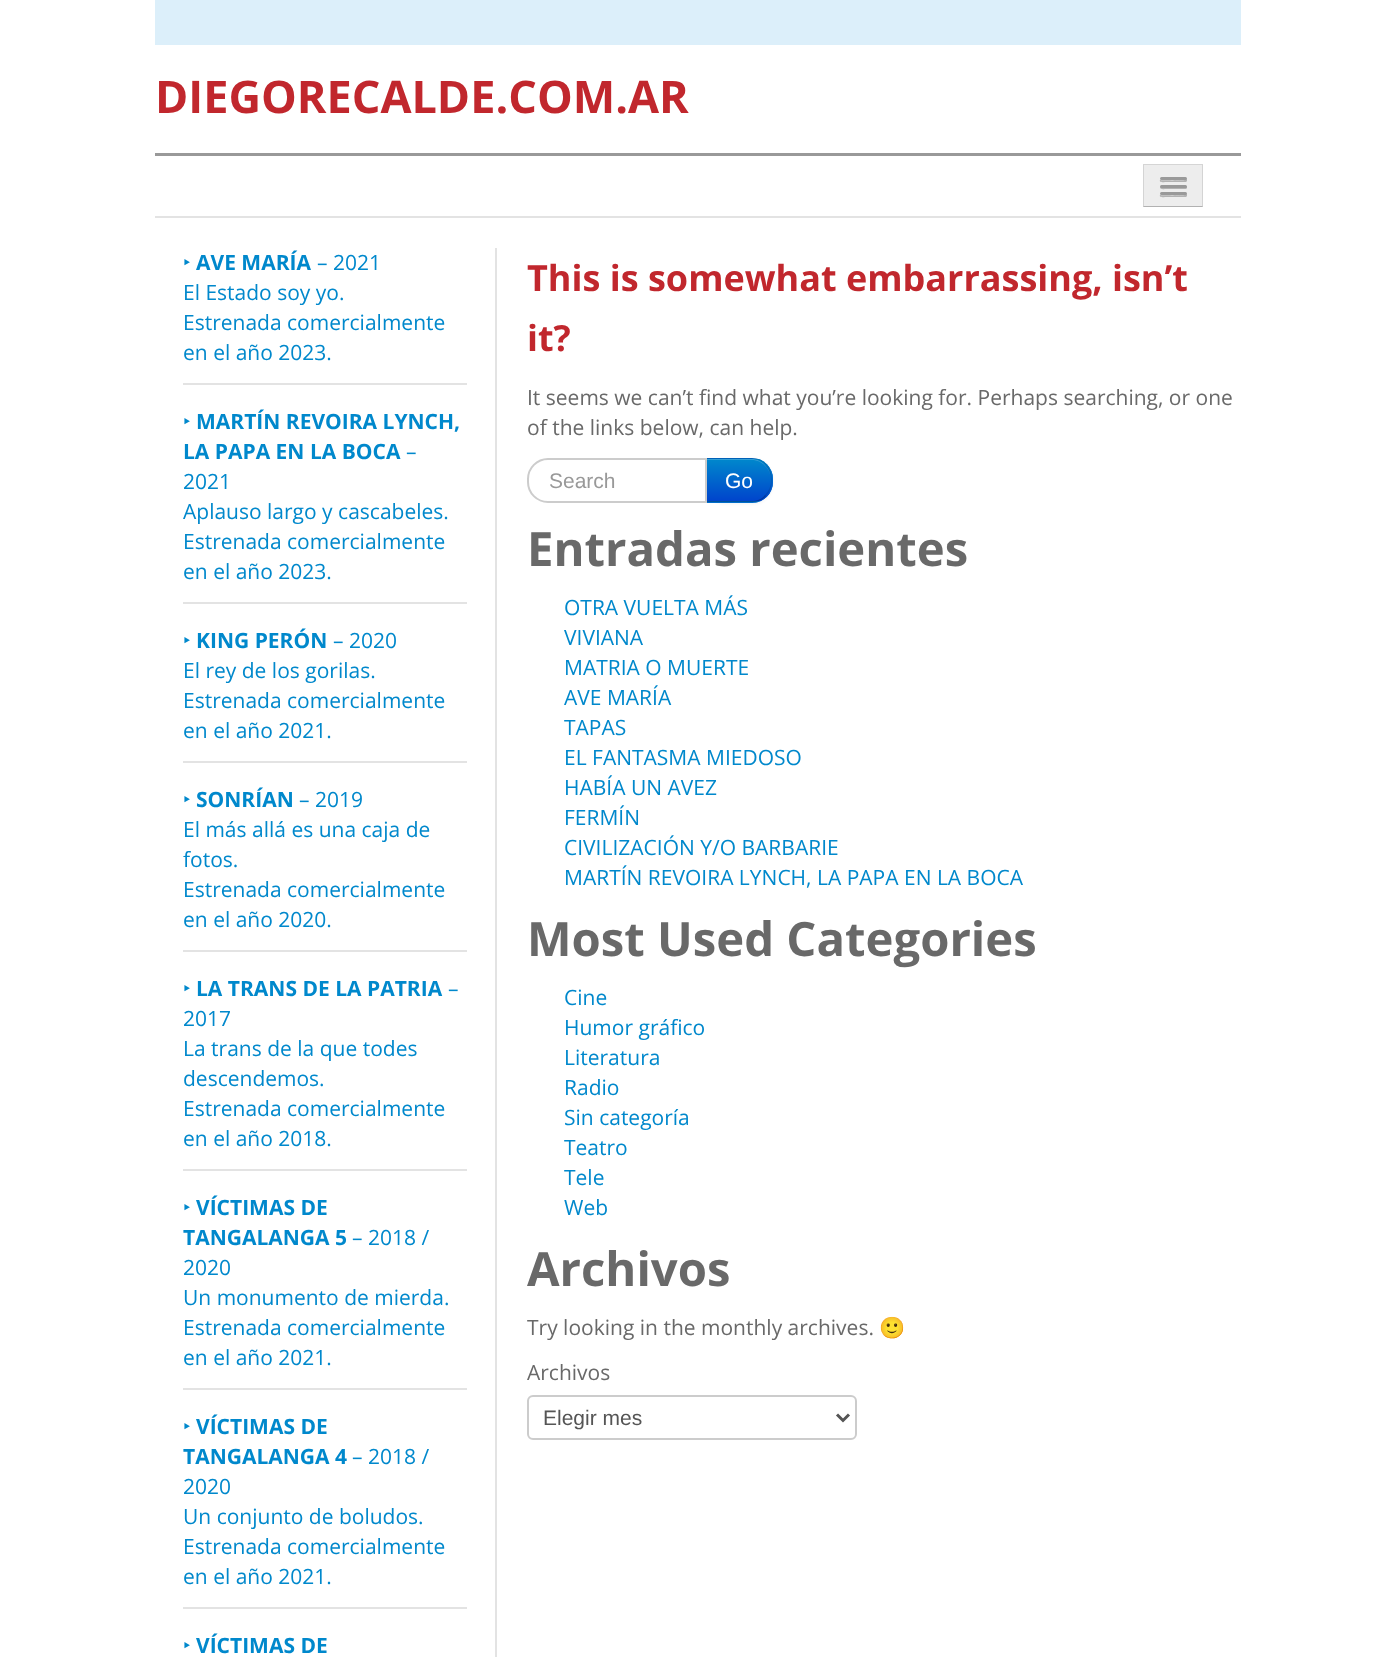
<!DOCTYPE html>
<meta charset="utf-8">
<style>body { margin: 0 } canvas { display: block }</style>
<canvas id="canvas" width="1395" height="1657"></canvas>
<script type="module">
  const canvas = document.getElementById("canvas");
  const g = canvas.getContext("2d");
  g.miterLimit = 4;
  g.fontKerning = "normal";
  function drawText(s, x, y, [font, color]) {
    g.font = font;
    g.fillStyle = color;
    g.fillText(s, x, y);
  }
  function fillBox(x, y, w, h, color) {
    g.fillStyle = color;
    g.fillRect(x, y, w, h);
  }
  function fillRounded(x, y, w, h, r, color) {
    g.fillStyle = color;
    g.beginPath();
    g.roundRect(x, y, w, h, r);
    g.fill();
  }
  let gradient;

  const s1 = ["bold 45px Open Sans", "#C1272D"];
  const s2 = ["21px Noto Sans", "#0088CC"];
  const s3 = ["bold 21px Open Sans", "#0088CC"];
  const s4 = ["21px Open Sans", "#0088CC"];
  const s5 = ["bold 36px Open Sans", "#C1272D"];
  const s6 = ["21px Open Sans", "#696969"];
  const s7 = ["21px Liberation Sans", "#999999"];
  const s8 = ["21px Liberation Sans", "#FFFFFF"];
  const s9 = ["bold 47.25px Open Sans", "#696969"];
  const s10 = ["21px Noto Color Emoji", "#696969"];
  const s11 = ["21px Liberation Sans", "#555555"];

  fillBox(0, 0, 1395, 1657, "#FFFFFF");
  fillBox(155, 0, 1086, 45, "#DCEFFA");
  drawText("DIEGORECALDE.COM.AR", 155, 113, s1);
  fillBox(155, 153, 1086, 3, "#999999");
  fillBox(155, 216, 1086, 2, "#E3E3E3");
  fillBox(1143, 164, 60, 43, "#EDEDED");
  g.fillStyle = "#D5D5D5";
  g.beginPath();
  g.moveTo(1143, 164);
  g.lineTo(1203, 164);
  g.lineTo(1202, 165);
  g.lineTo(1144, 165);
  g.closePath();
  g.fill();
  g.fillStyle = "rgba(0, 0, 0, 0.1)";
  g.beginPath();
  g.moveTo(1203, 164);
  g.lineTo(1203, 207);
  g.lineTo(1202, 206);
  g.lineTo(1202, 165);
  g.closePath();
  g.fill();
  g.fillStyle = "rgba(0, 0, 0, 0.25)";
  g.beginPath();
  g.moveTo(1203, 207);
  g.lineTo(1143, 207);
  g.lineTo(1144, 206);
  g.lineTo(1202, 206);
  g.closePath();
  g.fill();
  g.fillStyle = "rgba(0, 0, 0, 0.1)";
  g.beginPath();
  g.moveTo(1143, 207);
  g.lineTo(1143, 164);
  g.lineTo(1144, 165);
  g.lineTo(1144, 206);
  g.closePath();
  g.fill();
  g.fillStyle = "#B2B2B2";
  g.beginPath();
  g.moveTo(1160, 180);
  g.bezierCurveTo(1158.5, 183, 1165.5, 182, 1165.5, 182);
  g.lineTo(1186, 182);
  g.bezierCurveTo(1187, 181.5, 1187.5, 180, 1186.5, 179);
  g.lineTo(1185, 180);
  g.bezierCurveTo(1183, 180.5, 1161, 180.5, 1160, 180);
  g.closePath();
  g.fill();
  fillRounded(1160, 177, 27, 3, 1.5, "#999999");
  g.fillStyle = "#B2B2B2";
  g.beginPath();
  g.moveTo(1160, 187);
  g.bezierCurveTo(1159.5, 190, 1165, 189, 1165.5, 189);
  g.lineTo(1185.5, 189);
  g.bezierCurveTo(1187, 189, 1187.5, 187, 1186.5, 186.5);
  g.lineTo(1185.5, 187.5);
  g.bezierCurveTo(1184, 188, 1160.5, 187.5, 1160, 187);
  g.closePath();
  g.fill();
  fillRounded(1160, 185, 27, 3, 1.5, "#999999");
  g.fillStyle = "#B2B2B2";
  g.beginPath();
  g.moveTo(1160, 195);
  g.bezierCurveTo(1158.5, 198, 1165.5, 197, 1165.5, 197);
  g.lineTo(1186, 197);
  g.bezierCurveTo(1187, 196.5, 1187.5, 195, 1186.5, 194);
  g.lineTo(1185, 195);
  g.bezierCurveTo(1183, 195.5, 1161, 195.5, 1160, 195);
  g.closePath();
  g.fill();
  fillRounded(1160, 192, 27, 3, 1.5, "#999999");
  fillBox(495, 248, 2, 1409, "#E3E3E3");
  fillBox(183, 383, 284, 2, "#E3E3E3");
  drawText("‣", 183, 270, s2);
  drawText("AVE MARÍA", 196, 270, s3);
  drawText("– 2021", 317, 270, s4);
  drawText("El Estado soy yo.", 183, 300, s4);
  drawText("Estrenada comercialmente", 183, 330, s4);
  drawText("en el año 2023.", 183, 360, s4);
  fillBox(183, 602, 284, 2, "#E3E3E3");
  drawText("‣", 183, 429, s2);
  drawText("MARTÍN REVOIRA LYNCH,", 196, 429, s3);
  drawText("LA PAPA EN LA BOCA", 183, 459, s3);
  drawText("–", 406, 459, s4);
  drawText("2021", 183, 489, s4);
  drawText("Aplauso largo y cascabeles.", 183, 519, s4);
  drawText("Estrenada comercialmente", 183, 549, s4);
  drawText("en el año 2023.", 183, 579, s4);
  fillBox(183, 761, 284, 2, "#E3E3E3");
  drawText("‣", 183, 648, s2);
  drawText("KING PERÓN", 196, 648, s3);
  drawText("– 2020", 333, 648, s4);
  drawText("El rey de los gorilas.", 183, 678, s4);
  drawText("Estrenada comercialmente", 183, 708, s4);
  drawText("en el año 2021.", 183, 738, s4);
  fillBox(183, 950, 284, 2, "#E3E3E3");
  drawText("‣", 183, 807, s2);
  drawText("SONRÍAN", 196, 807, s3);
  drawText("– 2019", 299, 807, s4);
  drawText("El más allá es una caja de", 183, 837, s4);
  drawText("fotos.", 183, 867, s4);
  drawText("Estrenada comercialmente", 183, 897, s4);
  drawText("en el año 2020.", 183, 927, s4);
  fillBox(183, 1169, 284, 2, "#E3E3E3");
  drawText("‣", 183, 996, s2);
  drawText("LA TRANS DE LA PATRIA", 196, 996, s3);
  drawText("–", 448, 996, s4);
  drawText("2017", 183, 1026, s4);
  drawText("La trans de la que todes", 183, 1056, s4);
  drawText("descendemos.", 183, 1086, s4);
  drawText("Estrenada comercialmente", 183, 1116, s4);
  drawText("en el año 2018.", 183, 1146, s4);
  fillBox(183, 1388, 284, 2, "#E3E3E3");
  drawText("‣", 183, 1215, s2);
  drawText("VÍCTIMAS DE", 196, 1215, s3);
  drawText("TANGALANGA 5", 183, 1245, s3);
  drawText("– 2018 /", 352, 1245, s4);
  drawText("2020", 183, 1275, s4);
  drawText("Un monumento de mierda.", 183, 1305, s4);
  drawText("Estrenada comercialmente", 183, 1335, s4);
  drawText("en el año 2021.", 183, 1365, s4);
  fillBox(183, 1607, 284, 2, "#E3E3E3");
  drawText("‣", 183, 1434, s2);
  drawText("VÍCTIMAS DE", 196, 1434, s3);
  drawText("TANGALANGA 4", 183, 1464, s3);
  drawText("– 2018 /", 352, 1464, s4);
  drawText("2020", 183, 1494, s4);
  drawText("Un conjunto de boludos.", 183, 1524, s4);
  drawText("Estrenada comercialmente", 183, 1554, s4);
  drawText("en el año 2021.", 183, 1584, s4);
  drawText("‣", 183, 1653, s2);
  drawText("VÍCTIMAS DE", 196, 1653, s3);
  drawText("This is somewhat embarrassing, isn’t", 527, 291, s5);
  drawText("it?", 527, 351, s5);
  drawText("It seems we can’t find what you’re looking for. Perhaps searching, or one", 527, 405, s6);
  drawText("of the links below, can help.", 527, 435, s6);
  g.fillStyle = "rgba(0, 0, 0, 0.05)";
  g.filter = "blur(1.5px)";
  g.beginPath();
  g.roundRect(705, 459, 68, 45, 21);
  g.fill();
  g.filter = "none";
  g.fillStyle = "#006DCC";
  g.beginPath();
  g.roundRect(705, 458, 68, 45, [0, 21, 21, 0]);
  g.fill();
  g.save();
  g.beginPath();
  g.roundRect(705, 458, 68, 45, [0, 21, 21, 0]);
  g.clip();
  gradient = g.createLinearGradient(739, 459, 739, 501);
  gradient.addColorStop(0, "#0088CC");
  gradient.addColorStop(1, "#0044CC");
  g.fillStyle = gradient;
  g.fillRect(707, 459, 66, 42);
  g.restore();
  g.fillStyle = "rgba(255, 255, 255, 0.2)";
  g.beginPath();
  g.moveTo(707, 459);
  g.lineTo(707, 460);
  g.lineTo(752, 460);
  g.bezierCurveTo(762, 460, 771, 469, 771, 480);
  g.bezierCurveTo(771, 469, 763, 459, 751, 459);
  g.closePath();
  g.fill();
  g.fillStyle = "rgba(0, 0, 0, 0.1)";
  g.beginPath();
  g.moveTo(766, 464);
  g.bezierCurveTo(762, 460, 758, 458, 752, 458);
  g.lineTo(706, 458);
  g.lineTo(706, 459);
  g.lineTo(752, 459);
  g.bezierCurveTo(757, 459, 762, 461, 765, 465);
  g.closePath();
  g.fill();
  g.beginPath();
  g.moveTo(766, 464);
  g.bezierCurveTo(774, 472, 774, 488, 766, 496);
  g.lineTo(765, 495);
  g.bezierCurveTo(773, 487.5, 773, 472.5, 765, 465);
  g.closePath();
  g.fill();
  g.fillStyle = "rgba(0, 0, 0, 0.25)";
  g.beginPath();
  g.moveTo(766, 496);
  g.bezierCurveTo(762, 500, 758, 502, 752, 502);
  g.lineTo(706, 502);
  g.lineTo(706, 501);
  g.lineTo(752, 501);
  g.bezierCurveTo(757, 501, 762, 499, 765, 495);
  g.closePath();
  g.fill();
  g.fillStyle = "#FFFFFF";
  g.beginPath();
  g.roundRect(528, 459, 178, 43, [20, 0, 0, 20]);
  g.fill();
  g.strokeStyle = "#CCCCCC";
  g.lineWidth = 2;
  g.stroke();
  drawText("Search", 549, 488, s7);
  drawText("Go", 725, 488, s8);
  drawText("Entradas recientes", 527, 566, s9);
  drawText("OTRA VUELTA MÁS", 564, 615, s4);
  drawText("VIVIANA", 564, 645, s4);
  drawText("MATRIA O MUERTE", 564, 675, s4);
  drawText("AVE MARÍA", 564, 705, s4);
  drawText("TAPAS", 564, 735, s4);
  drawText("EL FANTASMA MIEDOSO", 564, 765, s4);
  drawText("HABÍA UN AVEZ", 564, 795, s4);
  drawText("FERMÍN", 564, 825, s4);
  drawText("CIVILIZACIÓN Y/O BARBARIE", 564, 855, s4);
  drawText("MARTÍN REVOIRA LYNCH, LA PAPA EN LA BOCA", 564, 885, s4);
  drawText("Most Used Categories", 527, 956, s9);
  drawText("Cine", 564, 1005, s4);
  drawText("Humor gráfico", 564, 1035, s4);
  drawText("Literatura", 564, 1065, s4);
  drawText("Radio", 564, 1095, s4);
  drawText("Sin categoría", 564, 1125, s4);
  drawText("Teatro", 564, 1155, s4);
  drawText("Tele", 564, 1185, s4);
  drawText("Web", 564, 1215, s4);
  drawText("Archivos", 527, 1286, s9);
  drawText("Try looking in the monthly archives.", 527, 1335, s6);
  drawText("🙂", 879, 1335, s10);
  drawText("Archivos", 527, 1380, s6);
  g.beginPath();
  g.roundRect(528, 1396, 328, 43, 5);
  g.stroke();
  g.beginPath();
  g.moveTo(837, 1414.5);
  g.lineTo(843, 1420.5);
  g.lineTo(849, 1414.5);
  g.strokeStyle = "#555555";
  g.lineWidth = 3;
  g.stroke();
  drawText("Elegir mes", 543, 1425, s11);
</script>
